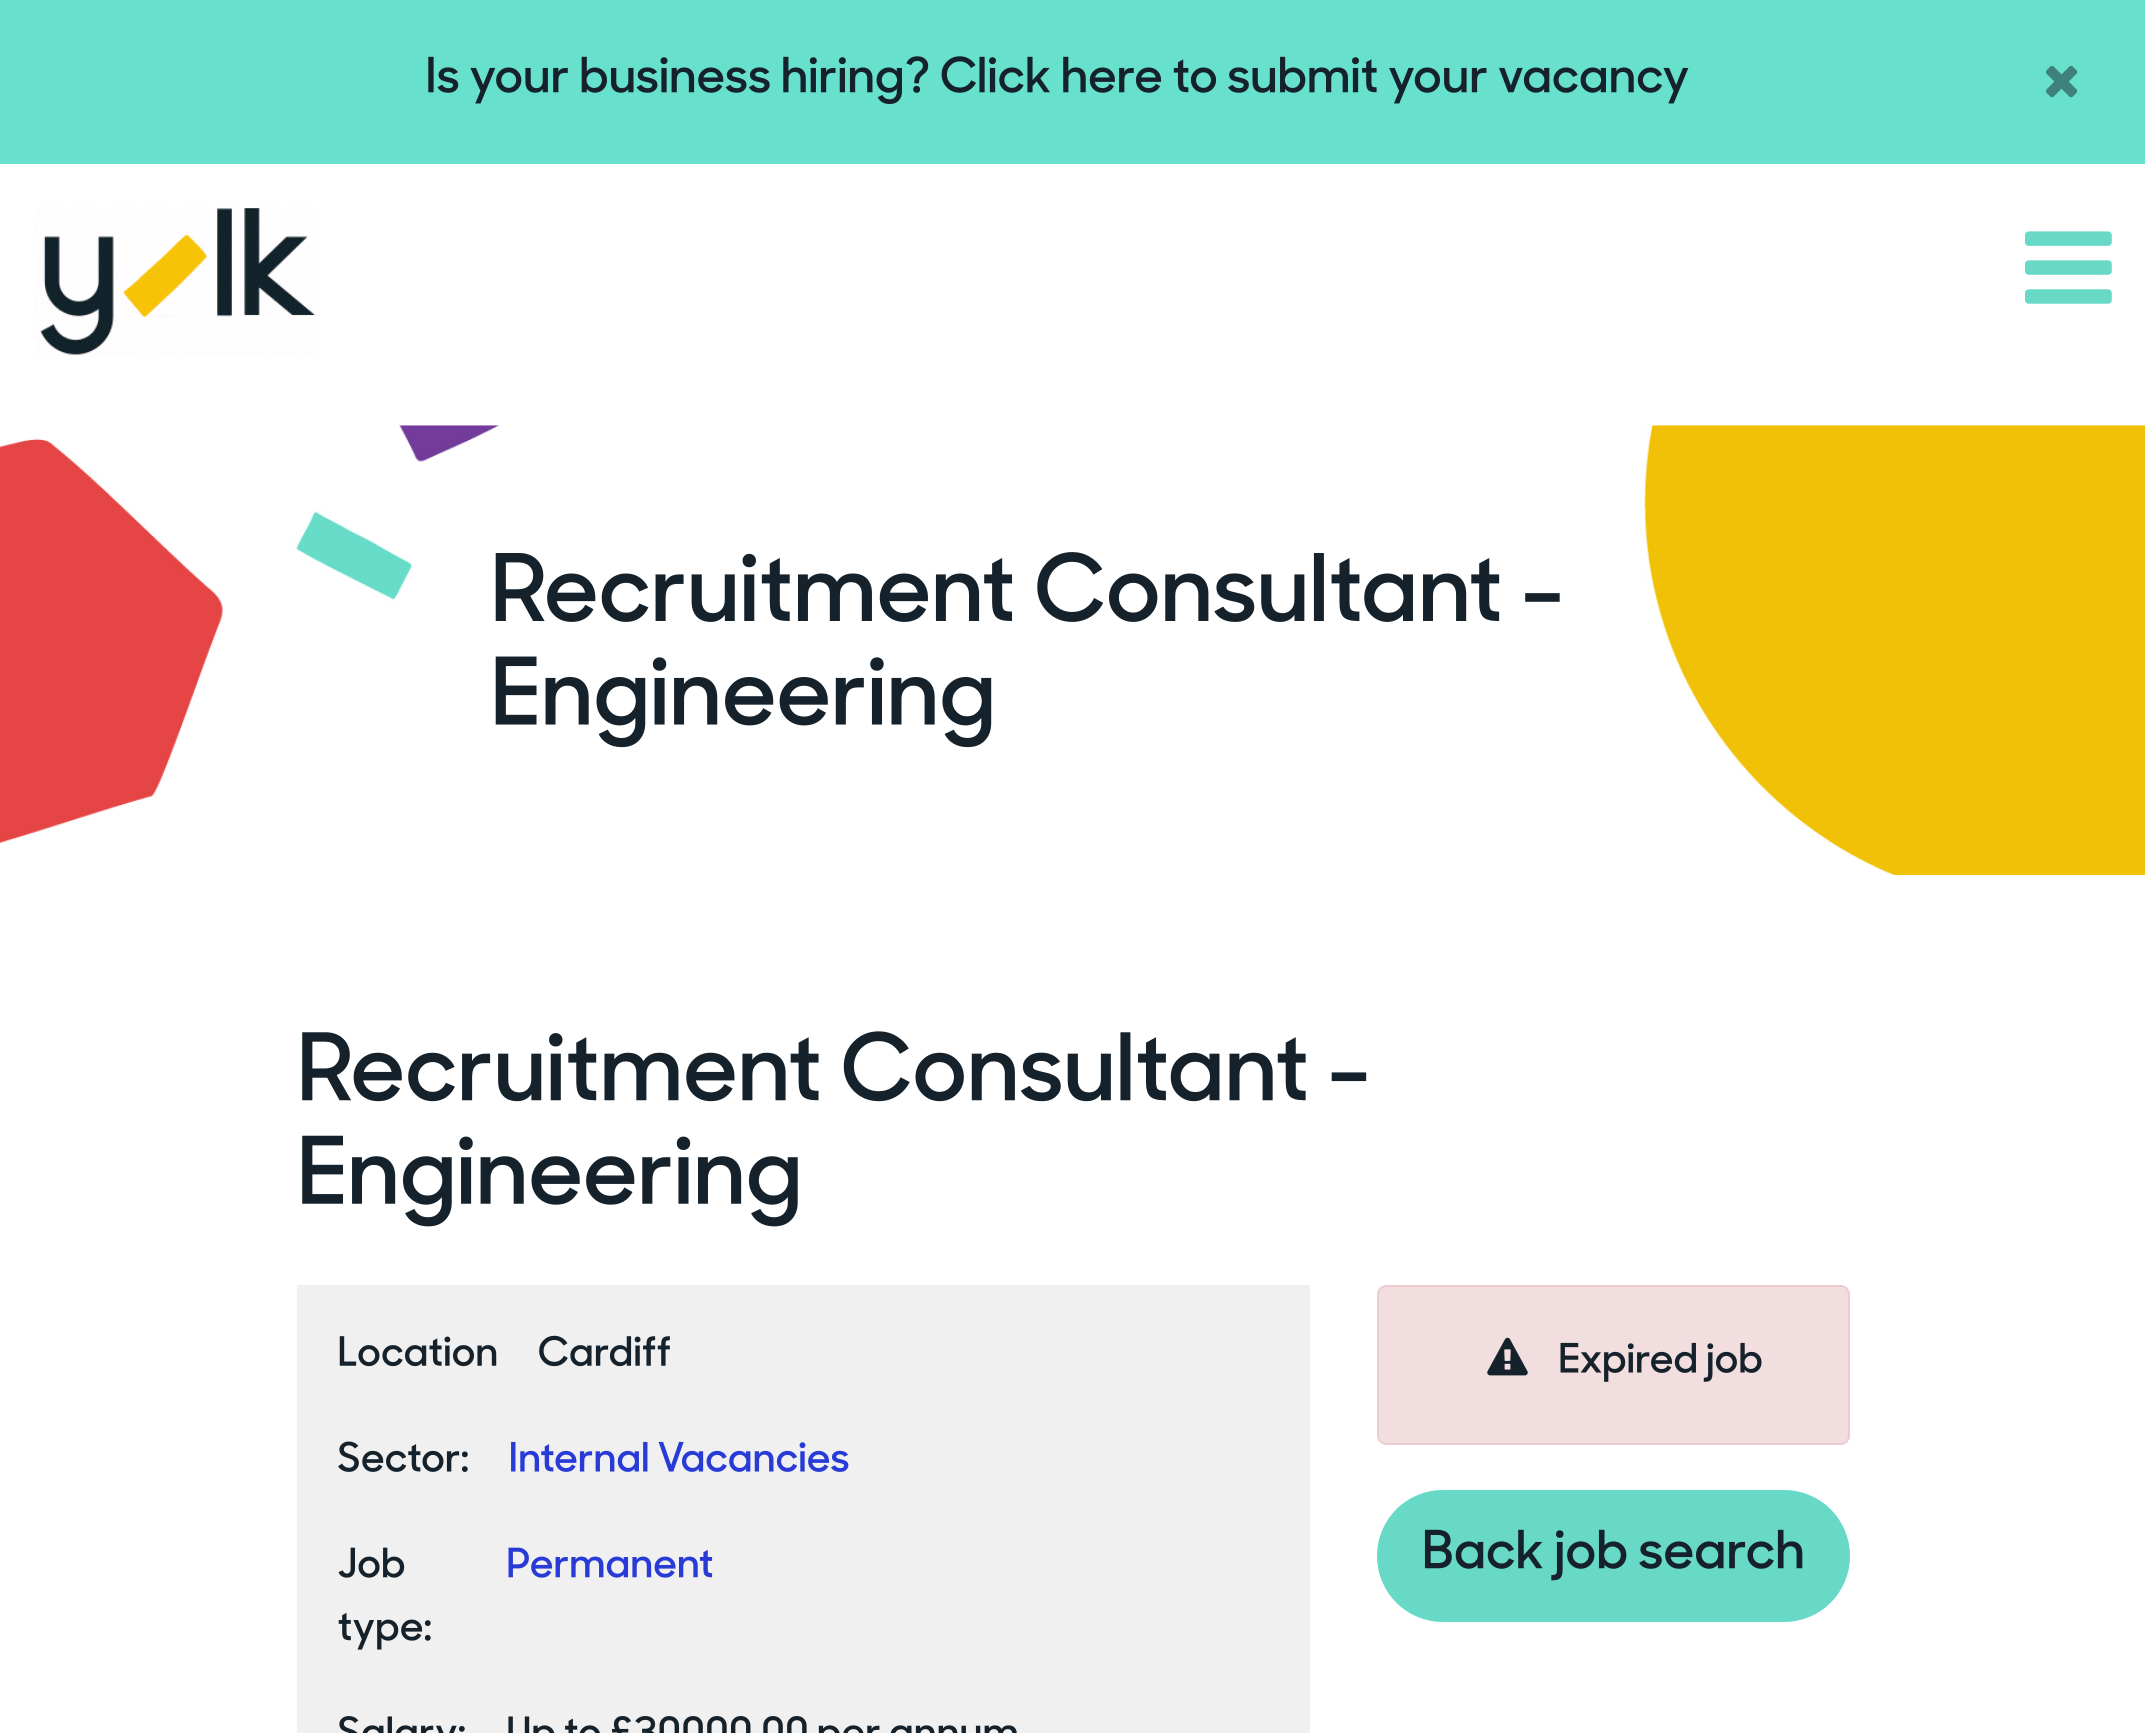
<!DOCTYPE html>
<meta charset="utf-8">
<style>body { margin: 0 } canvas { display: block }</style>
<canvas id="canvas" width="2145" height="1733"></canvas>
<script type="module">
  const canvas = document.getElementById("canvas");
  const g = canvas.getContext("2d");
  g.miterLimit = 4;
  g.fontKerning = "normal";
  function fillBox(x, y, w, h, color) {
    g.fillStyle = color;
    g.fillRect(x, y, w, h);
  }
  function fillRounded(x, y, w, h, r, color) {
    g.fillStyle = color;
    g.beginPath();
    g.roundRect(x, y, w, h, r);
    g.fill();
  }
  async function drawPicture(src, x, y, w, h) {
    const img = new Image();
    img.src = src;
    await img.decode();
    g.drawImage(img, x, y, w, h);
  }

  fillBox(0, 0, 2145, 1733, "#FFFFFF");
  fillBox(0, 0, 2145, 164, "#67E0CD");
  await drawPicture("pic1.png", 428, 56, 1261, 49);
  await drawPicture("pic2.png", 2046, 66, 32, 32);
  await drawPicture("pic3.png", 34, 207, 287, 151);
  await drawPicture("pic4.png", 2025, 231, 87, 73);
  await drawPicture("pic5.png", 0, 425, 2145, 451);
  await drawPicture("pic6.png", 495, 552, 1065, 70);
  await drawPicture("pic7.png", 495, 656, 497, 92);
  await drawPicture("pic8.png", 302, 1031, 1065, 71);
  await drawPicture("pic9.png", 302, 1135, 496, 92);
  fillBox(297, 1285, 1013, 448, "#F0F0F0");
  await drawPicture("pic10.png", 339, 1336, 158, 31);
  await drawPicture("pic11.png", 539, 1335, 131, 32);
  await drawPicture("pic12.png", 338, 1441, 130, 31);
  await drawPicture("pic13.png", 511, 1441, 338, 31);
  await drawPicture("pic14.png", 338, 1547, 67, 31);
  await drawPicture("pic15.png", 338, 1612, 93, 38);
  await drawPicture("pic16.png", 508, 1547, 205, 31);
  await drawPicture("pic17.png", 339, 1716, 126, 17);
  await drawPicture("pic18.png", 508, 1716, 509, 17);
  g.fillStyle = "#F2DEDE";
  g.beginPath();
  g.roundRect(1378, 1286, 471, 158, 8);
  g.fill();
  g.strokeStyle = "#EBCCD1";
  g.lineWidth = 2;
  g.stroke();
  await drawPicture("pic19.png", 1487, 1337, 41, 39);
  await drawPicture("pic20.png", 1560, 1342, 202, 40);
  fillRounded(1377, 1490, 473, 132, 66, "#67D9C6");
  await drawPicture("pic21.png", 1424, 1529, 379, 52);
</script>
